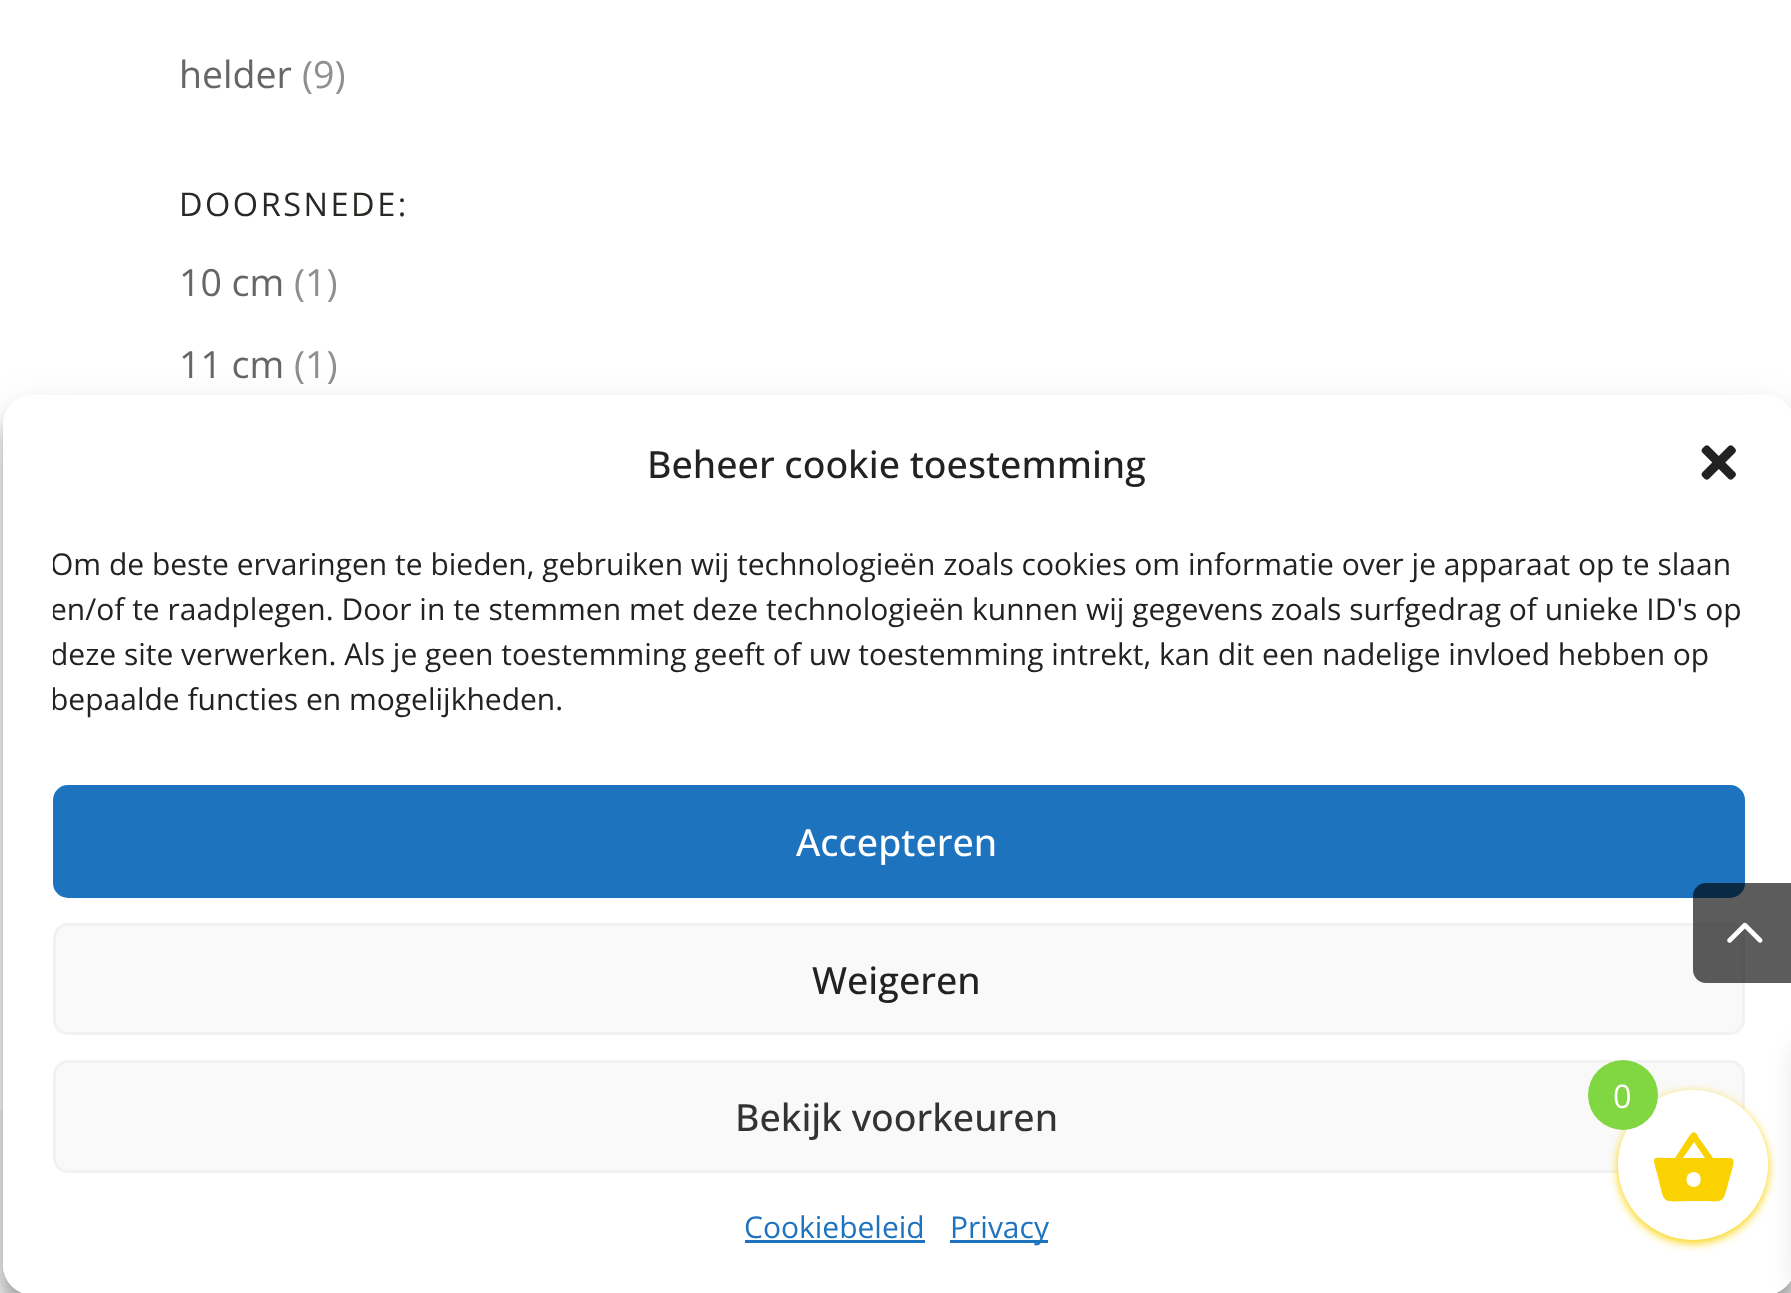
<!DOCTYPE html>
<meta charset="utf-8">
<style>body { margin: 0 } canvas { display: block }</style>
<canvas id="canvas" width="1791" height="1293"></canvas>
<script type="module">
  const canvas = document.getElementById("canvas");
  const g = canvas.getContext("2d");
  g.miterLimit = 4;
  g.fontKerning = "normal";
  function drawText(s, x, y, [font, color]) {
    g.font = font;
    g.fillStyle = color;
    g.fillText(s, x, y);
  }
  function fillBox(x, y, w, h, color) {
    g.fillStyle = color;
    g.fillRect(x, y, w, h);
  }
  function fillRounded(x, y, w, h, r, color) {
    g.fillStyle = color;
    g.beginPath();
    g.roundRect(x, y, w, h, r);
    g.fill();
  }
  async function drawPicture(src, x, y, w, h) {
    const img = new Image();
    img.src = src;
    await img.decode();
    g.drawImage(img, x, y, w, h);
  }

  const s1 = ["37.5px Open Sans", "#666666"];
  const s2 = ["37.5px Open Sans", "#918F8C"];
  const s3 = ["32.5px Open Sans", "#282825"];
  const s4 = ["500 37.5px Open Sans", "#222222"];
  const s5 = ["30px Open Sans", "#222222"];
  const s6 = ["500 37.5px Open Sans", "#FFFFFF"];
  const s7 = ["500 37.5px Open Sans", "#333333"];
  const s8 = ["30px Open Sans", "#1E73BE"];
  const s9 = ["32.5px Open Sans", "#FFFFFF"];

  fillBox(0, 0, 1791, 1293, "#FFFFFF");
  drawText("helder", 179, 88, s1);
  drawText("(9)", 302, 88, s2);
  g.letterSpacing = "2.5px";
  drawText("DOORSNEDE:", 179, 216, s3);
  g.letterSpacing = "0px";
  drawText("10 cm", 179, 296, s1);
  drawText("(1)", 294, 296, s2);
  drawText("11 cm", 179, 378, s1);
  drawText("(1)", 294, 378, s2);
  fillBox(0, 1110, 1791, 183, "#F7F7F7");
  g.save();
  g.beginPath();
  g.moveTo(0, 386);
  g.lineTo(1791, 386);
  g.lineTo(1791, 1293);
  g.lineTo(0, 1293);
  g.closePath();
  g.moveTo(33, 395);
  g.lineTo(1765, 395);
  g.bezierCurveTo(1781.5, 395, 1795, 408.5, 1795, 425);
  g.lineTo(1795, 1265);
  g.bezierCurveTo(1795, 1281.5, 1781.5, 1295, 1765, 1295);
  g.lineTo(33, 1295);
  g.bezierCurveTo(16.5, 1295, 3, 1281.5, 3, 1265);
  g.lineTo(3, 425);
  g.bezierCurveTo(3, 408.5, 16.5, 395, 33, 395);
  g.closePath();
  g.clip("evenodd");
  g.fillStyle = "rgba(0, 0, 0, 0.23)";
  g.filter = "blur(7.5px)";
  g.beginPath();
  g.roundRect(3, 410, 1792, 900, 30);
  g.fill();
  g.filter = "none";
  g.restore();
  g.save();
  g.beginPath();
  g.moveTo(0, 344);
  g.lineTo(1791, 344);
  g.lineTo(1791, 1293);
  g.lineTo(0, 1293);
  g.closePath();
  g.moveTo(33, 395);
  g.lineTo(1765, 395);
  g.bezierCurveTo(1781.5, 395, 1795, 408.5, 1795, 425);
  g.lineTo(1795, 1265);
  g.bezierCurveTo(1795, 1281.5, 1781.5, 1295, 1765, 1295);
  g.lineTo(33, 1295);
  g.bezierCurveTo(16.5, 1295, 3, 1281.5, 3, 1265);
  g.lineTo(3, 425);
  g.bezierCurveTo(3, 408.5, 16.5, 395, 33, 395);
  g.closePath();
  g.clip("evenodd");
  g.fillStyle = "rgba(0, 0, 0, 0.19)";
  g.filter = "blur(25px)";
  g.beginPath();
  g.roundRect(3, 420, 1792, 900, 30);
  g.fill();
  g.filter = "none";
  g.restore();
  fillRounded(3, 395, 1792, 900, 30, "#FFFFFF");
  g.fillStyle = "#1E73BE";
  g.beginPath();
  g.roundRect(54.5, 786.5, 1689, 110, 13.5);
  g.fill();
  g.strokeStyle = "#1E73BE";
  g.lineWidth = 3;
  g.stroke();
  g.fillStyle = "#F9F9F9";
  g.beginPath();
  g.roundRect(54.5, 924.5, 1689, 109, 13.5);
  g.fill();
  g.strokeStyle = "#F2F2F2";
  g.stroke();
  g.fillStyle = "rgba(0, 0, 0, 0.4)";
  g.beginPath();
  g.moveTo(1706, 883);
  g.lineTo(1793, 883);
  g.lineTo(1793, 983);
  g.lineTo(1706, 983);
  g.bezierCurveTo(1699, 983, 1693, 977, 1693, 970);
  g.lineTo(1693, 896);
  g.bezierCurveTo(1693, 889, 1699, 883, 1706, 883);
  g.closePath();
  g.fill();
  await drawPicture("pic1.png", 1727, 922, 36, 21);
  drawText("Beheer cookie toestemming", 647, 478, s4);
  await drawPicture("pic2.png", 1701, 445, 35, 35);
  g.save();
  g.beginPath();
  g.rect(53, 543, 1692, 192);
  g.clip();
  drawText("Om de beste ervaringen te bieden, gebruiken wij technologieën zoals cookies om informatie over je apparaat op te slaan", 50, 575, s5);
  drawText("en/of te raadplegen. Door in te stemmen met deze technologieën kunnen wij gegevens zoals surfgedrag of unieke ID's op", 50, 620, s5);
  drawText("deze site verwerken. Als je geen toestemming geeft of uw toestemming intrekt, kan dit een nadelige invloed hebben op", 50, 665, s5);
  drawText("bepaalde functies en mogelijkheden.", 50, 710, s5);
  g.restore();
  drawText("Accepteren", 796, 856, s6);
  drawText("Weigeren", 812, 994, s4);
  g.fillStyle = "#F9F9F9";
  g.beginPath();
  g.roundRect(54.5, 1061.5, 1689, 110, 13.5);
  g.fill();
  g.stroke();
  drawText("Bekijk voorkeuren", 735, 1131, s7);
  drawText("Cookiebeleid", 744, 1238, s8);
  fillBox(745, 1240, 180, 3, "#1E73BE");
  fillBox(950, 1240, 98, 3, "#1E73BE");
  drawText("Privacy", 950, 1238, s8);
  g.fillStyle = "rgba(0, 0, 0, 0.4)";
  g.beginPath();
  g.moveTo(1706, 883);
  g.lineTo(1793, 883);
  g.lineTo(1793, 983);
  g.lineTo(1706, 983);
  g.bezierCurveTo(1699, 983, 1693, 977, 1693, 970);
  g.lineTo(1693, 896);
  g.bezierCurveTo(1693, 889, 1699, 883, 1706, 883);
  g.closePath();
  g.fill();
  await drawPicture("pic3.png", 1727, 922, 36, 21);
  g.fillStyle = "#FAD201";
  g.filter = "blur(5px)";
  g.beginPath();
  g.roundRect(1618, 1093, 150, 150, 75);
  g.fill();
  g.filter = "none";
  g.fillStyle = "rgba(0, 0, 0, 0.1)";
  g.filter = "blur(12.5px)";
  g.beginPath();
  g.rect(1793, 1048, 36, 235);
  g.fill();
  g.filter = "none";
  g.fillStyle = "#FFFFFF";
  g.beginPath();
  g.arc(1693, 1165, 75, 0, Math.PI * 2);
  g.fill();
  g.fillStyle = "#81D742";
  g.beginPath();
  g.arc(1623, 1095, 35, 0, Math.PI * 2);
  g.fill();
  drawText("0", 1613, 1108, s9);
  g.fillStyle = "#FAD201";
  g.beginPath();
  g.moveTo(1694, 1187);
  g.bezierCurveTo(1703, 1187, 1703, 1172, 1694, 1172);
  g.bezierCurveTo(1684, 1172, 1684, 1187, 1694, 1187);
  g.closePath();
  g.moveTo(1683, 1158);
  g.lineTo(1705, 1158);
  g.lineTo(1694, 1142);
  g.closePath();
  g.moveTo(1713, 1158);
  g.lineTo(1727, 1158);
  g.bezierCurveTo(1734, 1158, 1734, 1159, 1733, 1166);
  g.lineTo(1729, 1180);
  g.bezierCurveTo(1722, 1206, 1726, 1201, 1694, 1201);
  g.bezierCurveTo(1659, 1201, 1666, 1207, 1657, 1173);
  g.bezierCurveTo(1652, 1154, 1651, 1158, 1675, 1158);
  g.lineTo(1688, 1138);
  g.bezierCurveTo(1693, 1130, 1695, 1130, 1699, 1138);
  g.closePath();
  g.fill();
</script>
